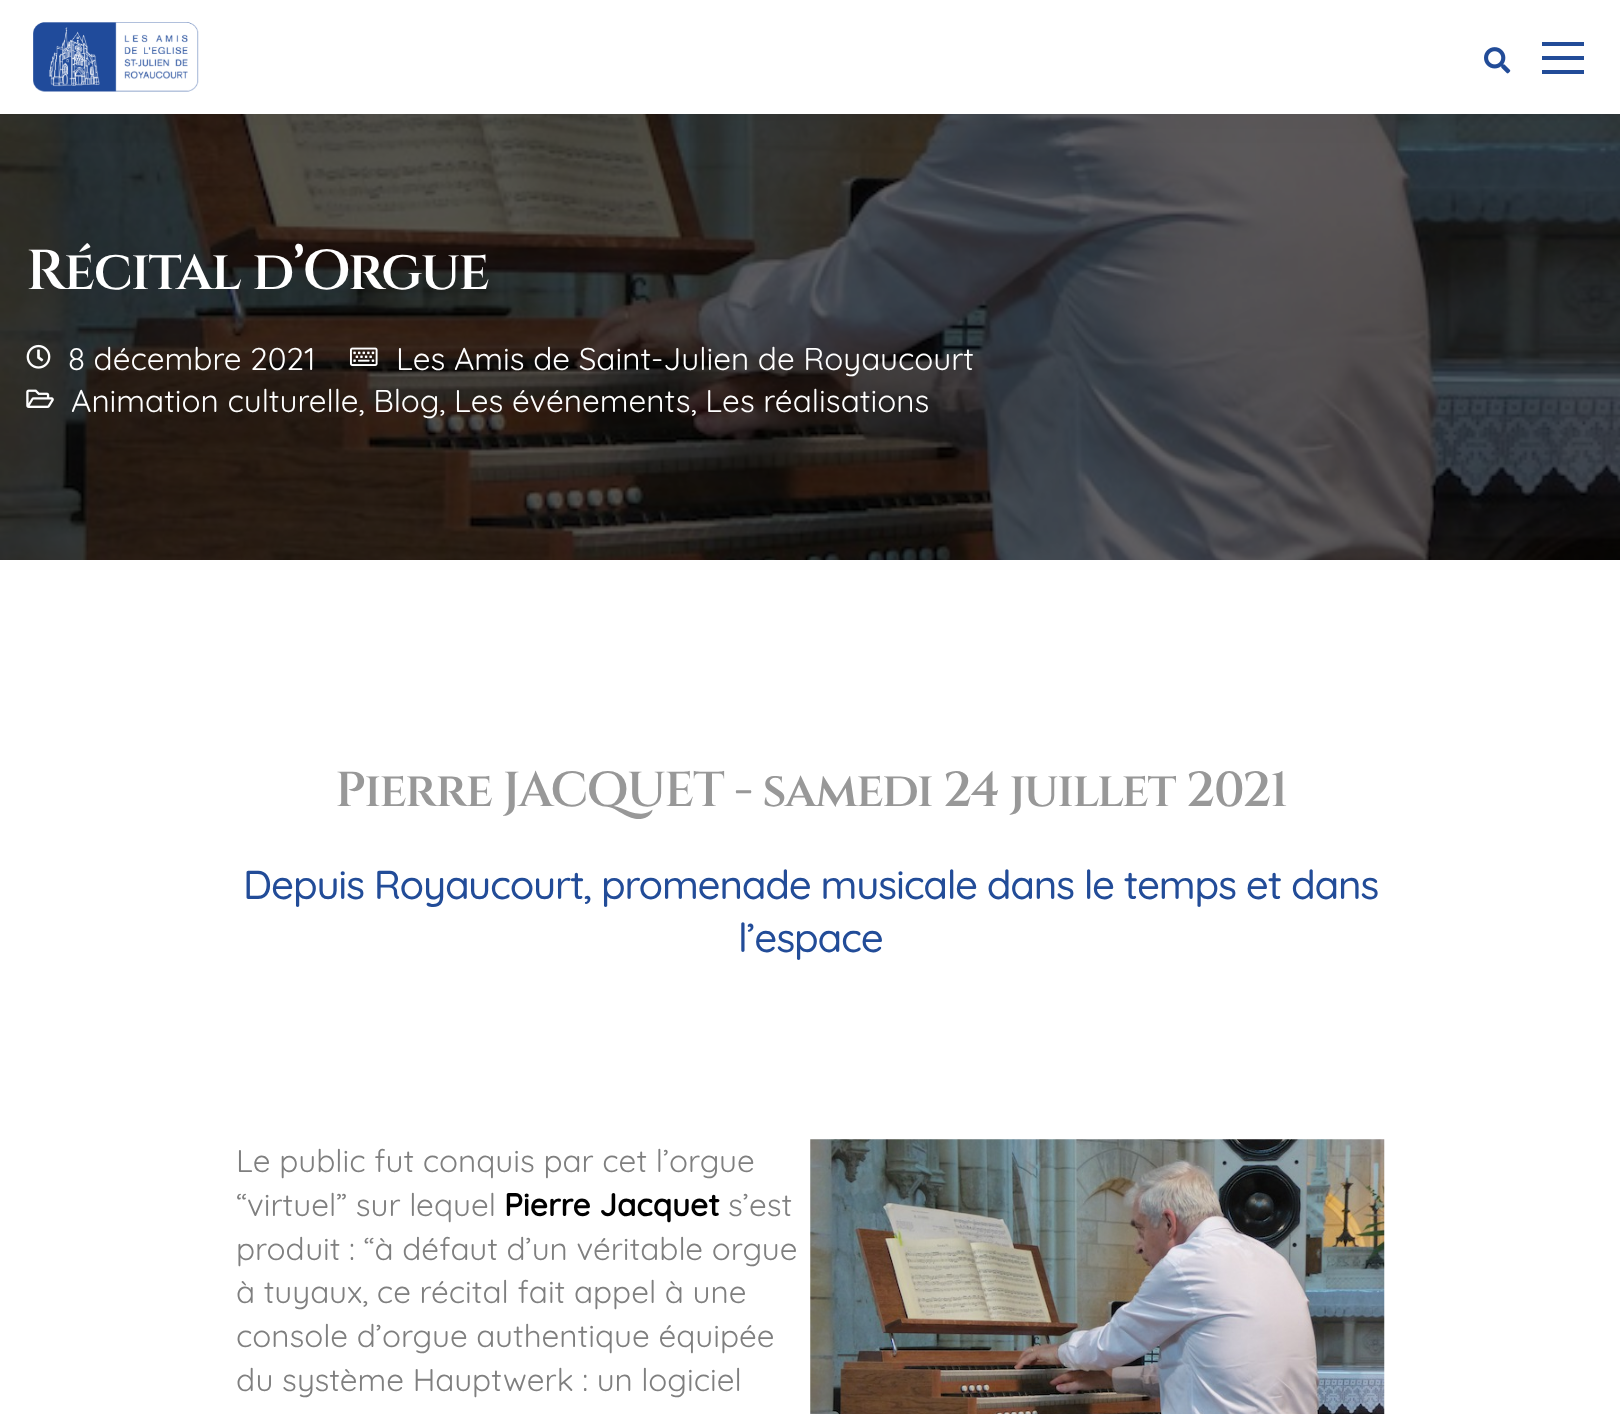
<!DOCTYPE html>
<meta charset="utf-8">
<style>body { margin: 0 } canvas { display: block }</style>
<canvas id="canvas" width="1620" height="1414"></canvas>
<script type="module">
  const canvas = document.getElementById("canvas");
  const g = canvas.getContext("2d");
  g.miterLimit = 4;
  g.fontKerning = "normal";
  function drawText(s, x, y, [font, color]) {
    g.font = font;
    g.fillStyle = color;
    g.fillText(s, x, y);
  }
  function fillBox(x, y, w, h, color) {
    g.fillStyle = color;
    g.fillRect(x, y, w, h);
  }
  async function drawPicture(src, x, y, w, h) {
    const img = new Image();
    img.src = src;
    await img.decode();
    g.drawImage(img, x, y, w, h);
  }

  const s1 = ["600 56px Cinzel", "#FFFFFF"];
  const s2 = ["31.5px Quicksand", "#FFFFFF"];
  const s3 = ["600 49px Cinzel", "#989898"];
  const s4 = ["500 40.25px Quicksand", "#224C98"];
  const s5 = ["31.5px Quicksand", "#7F7F7F"];
  const s6 = ["bold 31.5px Quicksand", "#000000"];

  fillBox(0, 0, 1620, 1414, "#FFFFFF");
  await drawPicture("pic3.png", 0, 114, 1620, 446);
  g.fillStyle = "rgba(0, 0, 0, 0.05)";
  g.filter = "blur(17.5px)";
  g.beginPath();
  g.rect(0, 0, 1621, 114);
  g.fill();
  g.filter = "none";
  fillBox(0, 0, 1620, 114, "#FFFFFF");
  await drawPicture("pic1.png", 33, 22, 166, 70);
  await drawPicture("pic2.png", 1484, 47, 27, 27);
  fillBox(1542, 70, 42, 4, "#224C98");
  fillBox(1542, 42, 42, 4, "#224C98");
  fillBox(1542, 56, 42, 4, "#224C98");
  g.letterSpacing = "-1.7px";
  drawText("Récital d’Orgue", 26, 289, s1);
  await drawPicture("pic4.png", 26, 344, 25, 25);
  g.letterSpacing = "0px";
  drawText("8 décembre 2021", 68, 370, s2);
  await drawPicture("pic5.png", 350, 347, 28, 19);
  drawText("Les Amis de Saint-Julien de Royaucourt", 396, 370, s2);
  await drawPicture("pic6.png", 26, 389, 28, 19);
  drawText("Animation culturelle, Blog, Les événements, Les réalisations", 71, 412, s2);
  g.letterSpacing = "-1.45px";
  drawText("Pierre JACQUET - samedi 24 juillet 2021", 335, 806, s3);
  g.letterSpacing = "-1.2px";
  drawText("Depuis Royaucourt, promenade musicale dans le temps et dans", 243, 899, s4);
  drawText("l’espace", 738, 952, s4);
  g.letterSpacing = "0px";
  drawText("Le public fut conquis par cet l’orgue", 236, 1172, s5);
  drawText("“virtuel” sur lequel", 236, 1216, s5);
  drawText("Pierre Jacquet", 504, 1216, s6);
  drawText("s’est", 728, 1216, s5);
  drawText("produit : “à défaut d’un véritable orgue", 236, 1260, s5);
  drawText("à tuyaux, ce récital fait appel à une", 236, 1303, s5);
  drawText("console d’orgue authentique équipée", 236, 1347, s5);
  drawText("du système Hauptwerk : un logiciel", 236, 1391, s5);
  await drawPicture("pic7.png", 810, 1139, 575, 275);
</script>
